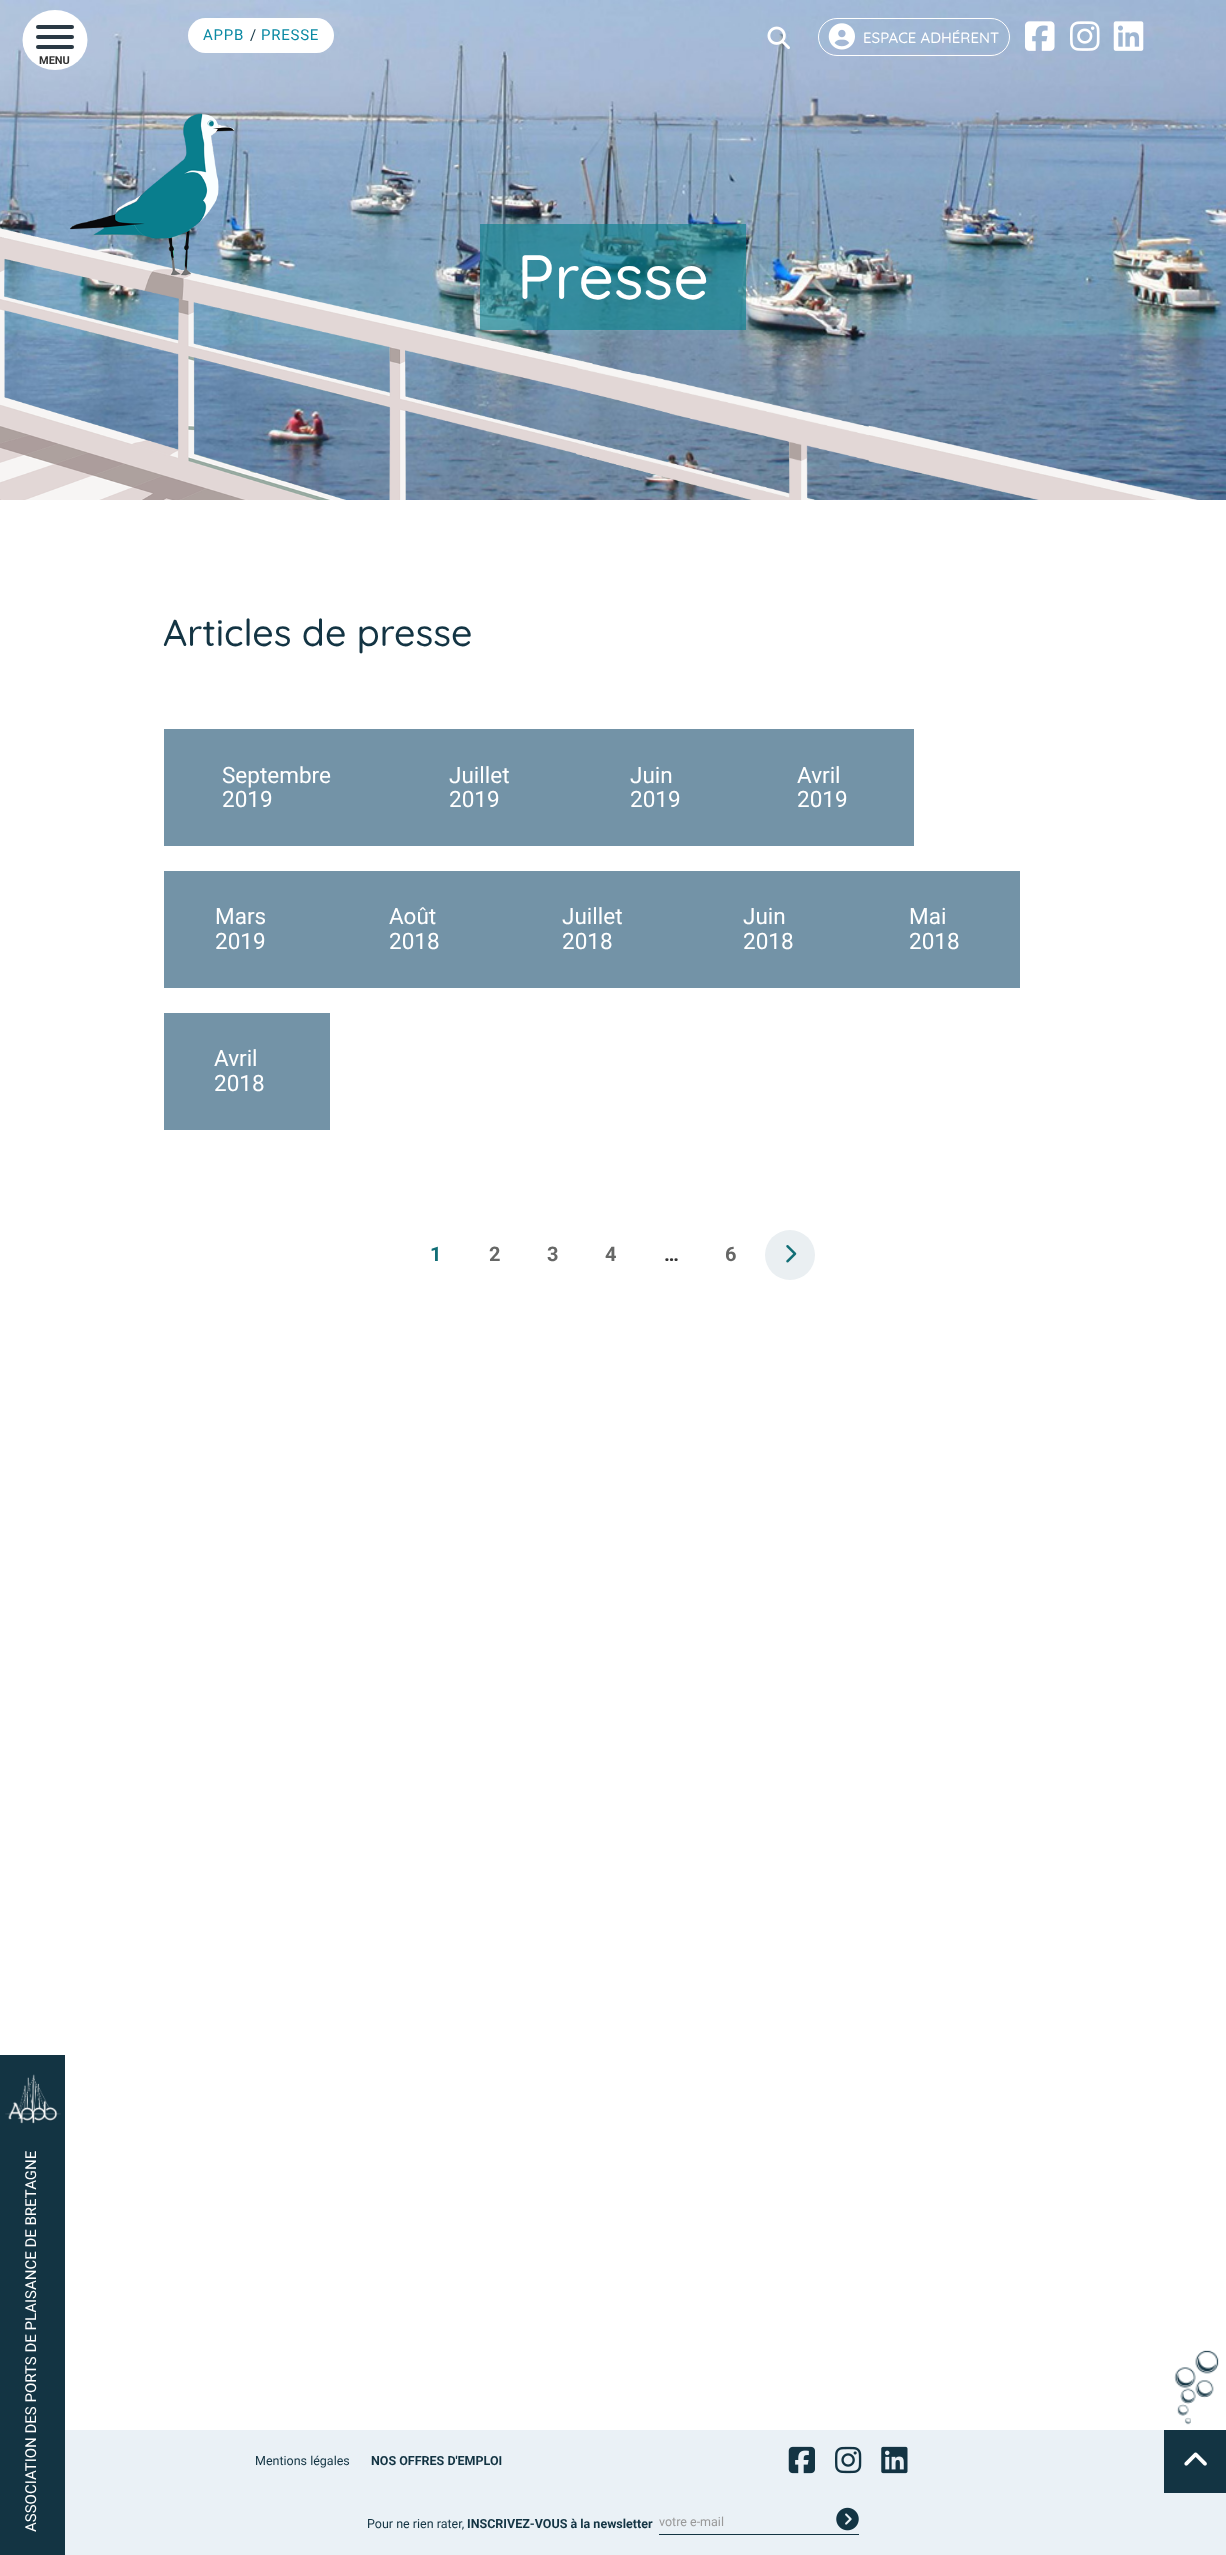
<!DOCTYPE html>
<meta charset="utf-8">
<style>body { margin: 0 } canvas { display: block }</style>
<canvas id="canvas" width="1226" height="2555"></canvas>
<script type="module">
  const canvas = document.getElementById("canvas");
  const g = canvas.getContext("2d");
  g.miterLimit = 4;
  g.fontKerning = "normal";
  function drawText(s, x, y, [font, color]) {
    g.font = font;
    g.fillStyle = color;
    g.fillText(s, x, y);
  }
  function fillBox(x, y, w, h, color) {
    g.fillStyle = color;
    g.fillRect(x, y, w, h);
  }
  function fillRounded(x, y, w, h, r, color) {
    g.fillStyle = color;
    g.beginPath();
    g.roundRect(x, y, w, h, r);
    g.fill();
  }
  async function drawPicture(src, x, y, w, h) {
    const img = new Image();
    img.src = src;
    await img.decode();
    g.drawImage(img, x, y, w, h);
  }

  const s1 = ["500 15px Quicksand", "#FFFFFF"];
  const s2 = ["bold 11px Roboto", "#333333"];
  const s3 = ["15px Roboto", "#0B8AA4"];
  const s4 = ["15px Roboto", "#133443"];
  const s5 = ["500 62.5px Quicksand", "#FFFFFF"];
  const s6 = ["500 37.5px Quicksand", "#133443"];
  const s7 = ["22.5px Roboto", "#FFFFFF"];
  const s8 = ["bold 20px Roboto", "#116E76"];
  const s9 = ["bold 20px Roboto", "#666766"];
  const s10 = ["bold 20px Roboto", "#333333"];
  const s11 = ["12.5px Roboto", "#133443"];
  const s12 = ["bold 12.5px Roboto", "#133443"];
  const s13 = ["12.5px Roboto", "#999999"];

  fillBox(0, 0, 1226, 2555, "#FFFFFF");
  await drawPicture("pic6.png", 0, 0, 1226, 500);
  await drawPicture("pic1.png", 767, 26, 23, 23);
  g.beginPath();
  g.roundRect(818.5, 18.5, 191, 37, 18.5);
  g.strokeStyle = "#FFFFFF";
  g.stroke();
  await drawPicture("pic2.png", 828, 23, 27, 27);
  drawText("ESPACE ADHÉRENT", 863, 43, s1);
  await drawPicture("pic3.png", 1025, 21, 30, 30);
  await drawPicture("pic4.png", 1070, 21, 30, 30);
  await drawPicture("pic5.png", 1113, 21, 31, 30);
  g.beginPath();
  g.ellipse(55, 40, 32.5, 30, 0, 0, Math.PI * 2);
  g.fill();
  fillRounded(36, 25, 38, 4, 2, "#2A3944");
  fillRounded(36, 35, 38, 4, 2, "#2A3944");
  fillRounded(36, 45, 38, 4, 2, "#2A3944");
  drawText("MENU", 39, 64, s2);
  fillRounded(188, 18, 146, 35, 17.5, "#FFFFFF");
  g.letterSpacing = "0.75px";
  drawText("APPB", 203, 40, s3);
  drawText("/", 250, 40, s4);
  drawText("PRESSE", 261, 40, s3);
  await drawPicture("pic7.png", 0, 113, 1198, 387);
  fillBox(480, 224, 266, 106, "rgba(9, 126, 141, 0.64)");
  g.letterSpacing = "0px";
  drawText("Presse", 517, 299, s5);
  drawText("Articles de presse", 163, 646, s6);
  fillBox(164, 729, 750, 117, "#7393A7");
  drawText("Septembre", 222, 783, s7);
  drawText("2019", 222, 807, s7);
  drawText("Juillet", 449, 783, s7);
  drawText("2019", 449, 807, s7);
  drawText("Juin", 630, 783, s7);
  drawText("2019", 630, 807, s7);
  drawText("Avril", 797, 783, s7);
  drawText("2019", 797, 807, s7);
  fillBox(164, 871, 856, 117, "#7393A7");
  drawText("Mars", 215, 924, s7);
  drawText("2019", 215, 949, s7);
  drawText("Août", 389, 924, s7);
  drawText("2018", 389, 949, s7);
  drawText("Juillet", 562, 924, s7);
  drawText("2018", 562, 949, s7);
  drawText("Juin", 743, 924, s7);
  drawText("2018", 743, 949, s7);
  drawText("Mai", 909, 924, s7);
  drawText("2018", 909, 949, s7);
  fillBox(164, 1013, 166, 117, "#7393A7");
  drawText("Avril", 214, 1066, s7);
  drawText("2018", 214, 1091, s7);
  drawText("1", 430, 1261, s8);
  drawText("2", 489, 1261, s9);
  drawText("3", 547, 1261, s9);
  drawText("4", 605, 1261, s9);
  drawText("…", 664, 1261, s10);
  drawText("6", 725, 1261, s9);
  g.fillStyle = "#EAEFF2";
  g.beginPath();
  g.arc(790, 1255, 25, 0, Math.PI * 2);
  g.fill();
  await drawPicture("pic8.png", 786, 1245, 11, 18);
  fillBox(65, 2430, 1161, 125, "#EAF1F6");
  fillBox(0, 2055, 65, 500, "#133443");
  await drawPicture("pic9.png", 5, 2074, 56, 50);
  g.font = "15px Roboto";
  g.fillStyle = "#FFFFFF";
  g.save();
  g.translate(36, 2532);
  g.rotate(-90 * Math.PI / 180);
  g.fillText("ASSOCIATION DES PORTS DE PLAISANCE DE BRETAGNE", 0, 0);
  g.restore();
  drawText("Mentions légales", 255, 2465, s11);
  drawText("NOS OFFRES D'EMPLOI", 371, 2465, s12);
  await drawPicture("pic10.png", 788, 2446, 27, 28);
  await drawPicture("pic11.png", 835, 2446, 27, 28);
  await drawPicture("pic12.png", 881, 2446, 27, 28);
  drawText("Pour ne rien rater,", 367, 2528, s11);
  drawText("INSCRIVEZ-VOUS à la newsletter", 467, 2528, s12);
  fillBox(659, 2534, 200, 1, "#133443");
  drawText("votre e-mail", 659, 2526, s13);
  await drawPicture("pic13.png", 836, 2507, 23, 24);
  fillBox(1164, 2430, 62, 63, "#133443");
  await drawPicture("pic14.png", 1174, 2350, 45, 75);
  await drawPicture("pic15.png", 1184, 2452, 23, 14);
</script>
